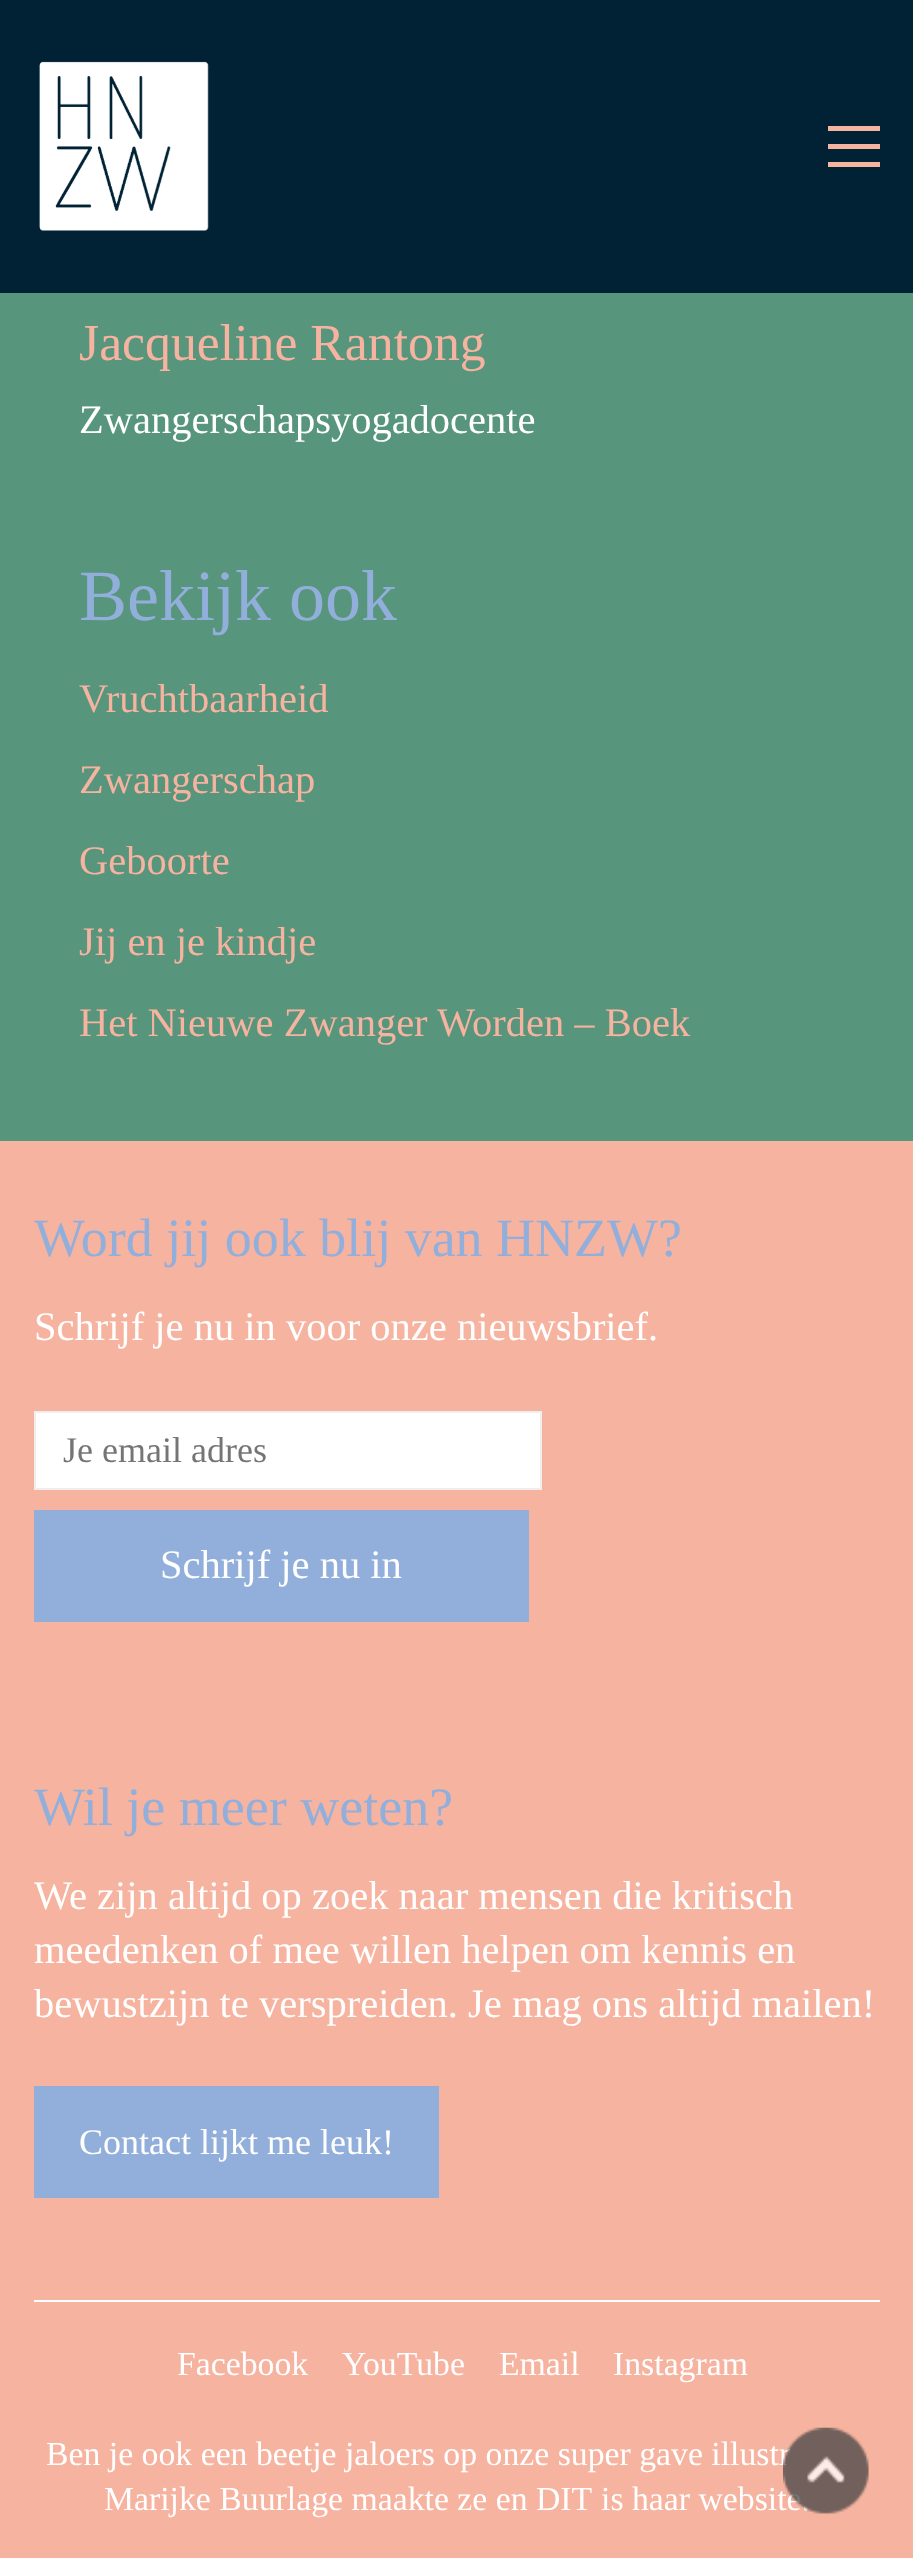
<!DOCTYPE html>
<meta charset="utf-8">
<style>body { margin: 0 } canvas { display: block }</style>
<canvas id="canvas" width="913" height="2558"></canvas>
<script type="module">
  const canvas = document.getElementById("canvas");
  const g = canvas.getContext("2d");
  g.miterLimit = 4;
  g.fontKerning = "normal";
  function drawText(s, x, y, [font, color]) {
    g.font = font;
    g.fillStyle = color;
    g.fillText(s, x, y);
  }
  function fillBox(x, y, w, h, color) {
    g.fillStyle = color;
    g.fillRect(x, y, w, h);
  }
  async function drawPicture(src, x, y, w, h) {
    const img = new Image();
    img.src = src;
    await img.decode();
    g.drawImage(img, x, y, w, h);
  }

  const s1 = ["51.75px Liberation Serif", "#F6B3A0"];
  const s2 = ["40.5px Liberation Serif", "#FFFFFF"];
  const s3 = ["72px Liberation Serif", "#92AFDB"];
  const s4 = ["40.5px Liberation Serif", "#F6B3A0"];
  const s5 = ["54px Liberation Serif", "#92AFDB"];
  const s6 = ["36px Liberation Serif", "#757575"];
  const s7 = ["36px Liberation Serif", "#FFFFFF"];
  const s8 = ["33.75px Liberation Serif", "#FFFFFF"];

  fillBox(0, 0, 913, 2558, "#F6B3A0");
  fillBox(0, 293, 913, 848, "#57957C");
  fillBox(0, 0, 913, 293, "#012235");
  await drawPicture("pic1.png", 39, 61, 170, 170);
  fillBox(828, 126, 52, 5, "#F6B3A0");
  fillBox(828, 144, 52, 5, "#F6B3A0");
  fillBox(828, 162, 52, 5, "#F6B3A0");
  drawText("Jacqueline Rantong", 79, 360, s1);
  drawText("Zwangerschapsyogadocente", 79, 433, s2);
  drawText("Bekijk ook", 79, 620, s3);
  drawText("Vruchtbaarheid", 79, 712, s4);
  drawText("Zwangerschap", 79, 793, s4);
  drawText("Geboorte", 79, 874, s4);
  drawText("Jij en je kindje", 79, 955, s4);
  drawText("Het Nieuwe Zwanger Worden – Boek", 79, 1036, s4);
  drawText("Word jij ook blij van HNZW?", 34, 1256, s5);
  drawText("Schrijf je nu in voor onze nieuwsbrief.", 34, 1340, s2);
  g.beginPath();
  g.rect(35, 1412, 506, 77);
  g.fill();
  g.strokeStyle = "#EEEEEE";
  g.lineWidth = 2;
  g.stroke();
  drawText("Je email adres", 63, 1462, s6);
  fillBox(34, 1510, 495, 112, "#92AFDB");
  drawText("Schrijf je nu in", 160, 1578, s2);
  drawText("Wil je meer weten?", 34, 1825, s5);
  drawText("We zijn altijd op zoek naar mensen die kritisch", 34, 1909, s2);
  drawText("meedenken of mee willen helpen om kennis en", 34, 1963, s2);
  drawText("bewustzijn te verspreiden. Je mag ons altijd mailen!", 34, 2017, s2);
  fillBox(34, 2086, 405, 112, "#92AFDB");
  drawText("Contact lijkt me leuk!", 79, 2154, s7);
  fillBox(34, 2300, 846, 2, "#FFFFFF");
  drawText("Facebook", 177, 2375, s8);
  drawText("YouTube", 342, 2375, s8);
  drawText("Email", 499, 2375, s8);
  drawText("Instagram", 613, 2375, s8);
  drawText("Ben je ook een beetje jaloers op onze super gave illustr", 46, 2465, s8);
  drawText("Marijke Buurlage maakte ze en DIT", 104, 2510, s8);
  drawText("is haar website.", 601, 2510, s8);
  await drawPicture("pic2.png", 783, 2427, 86, 87);
</script>
